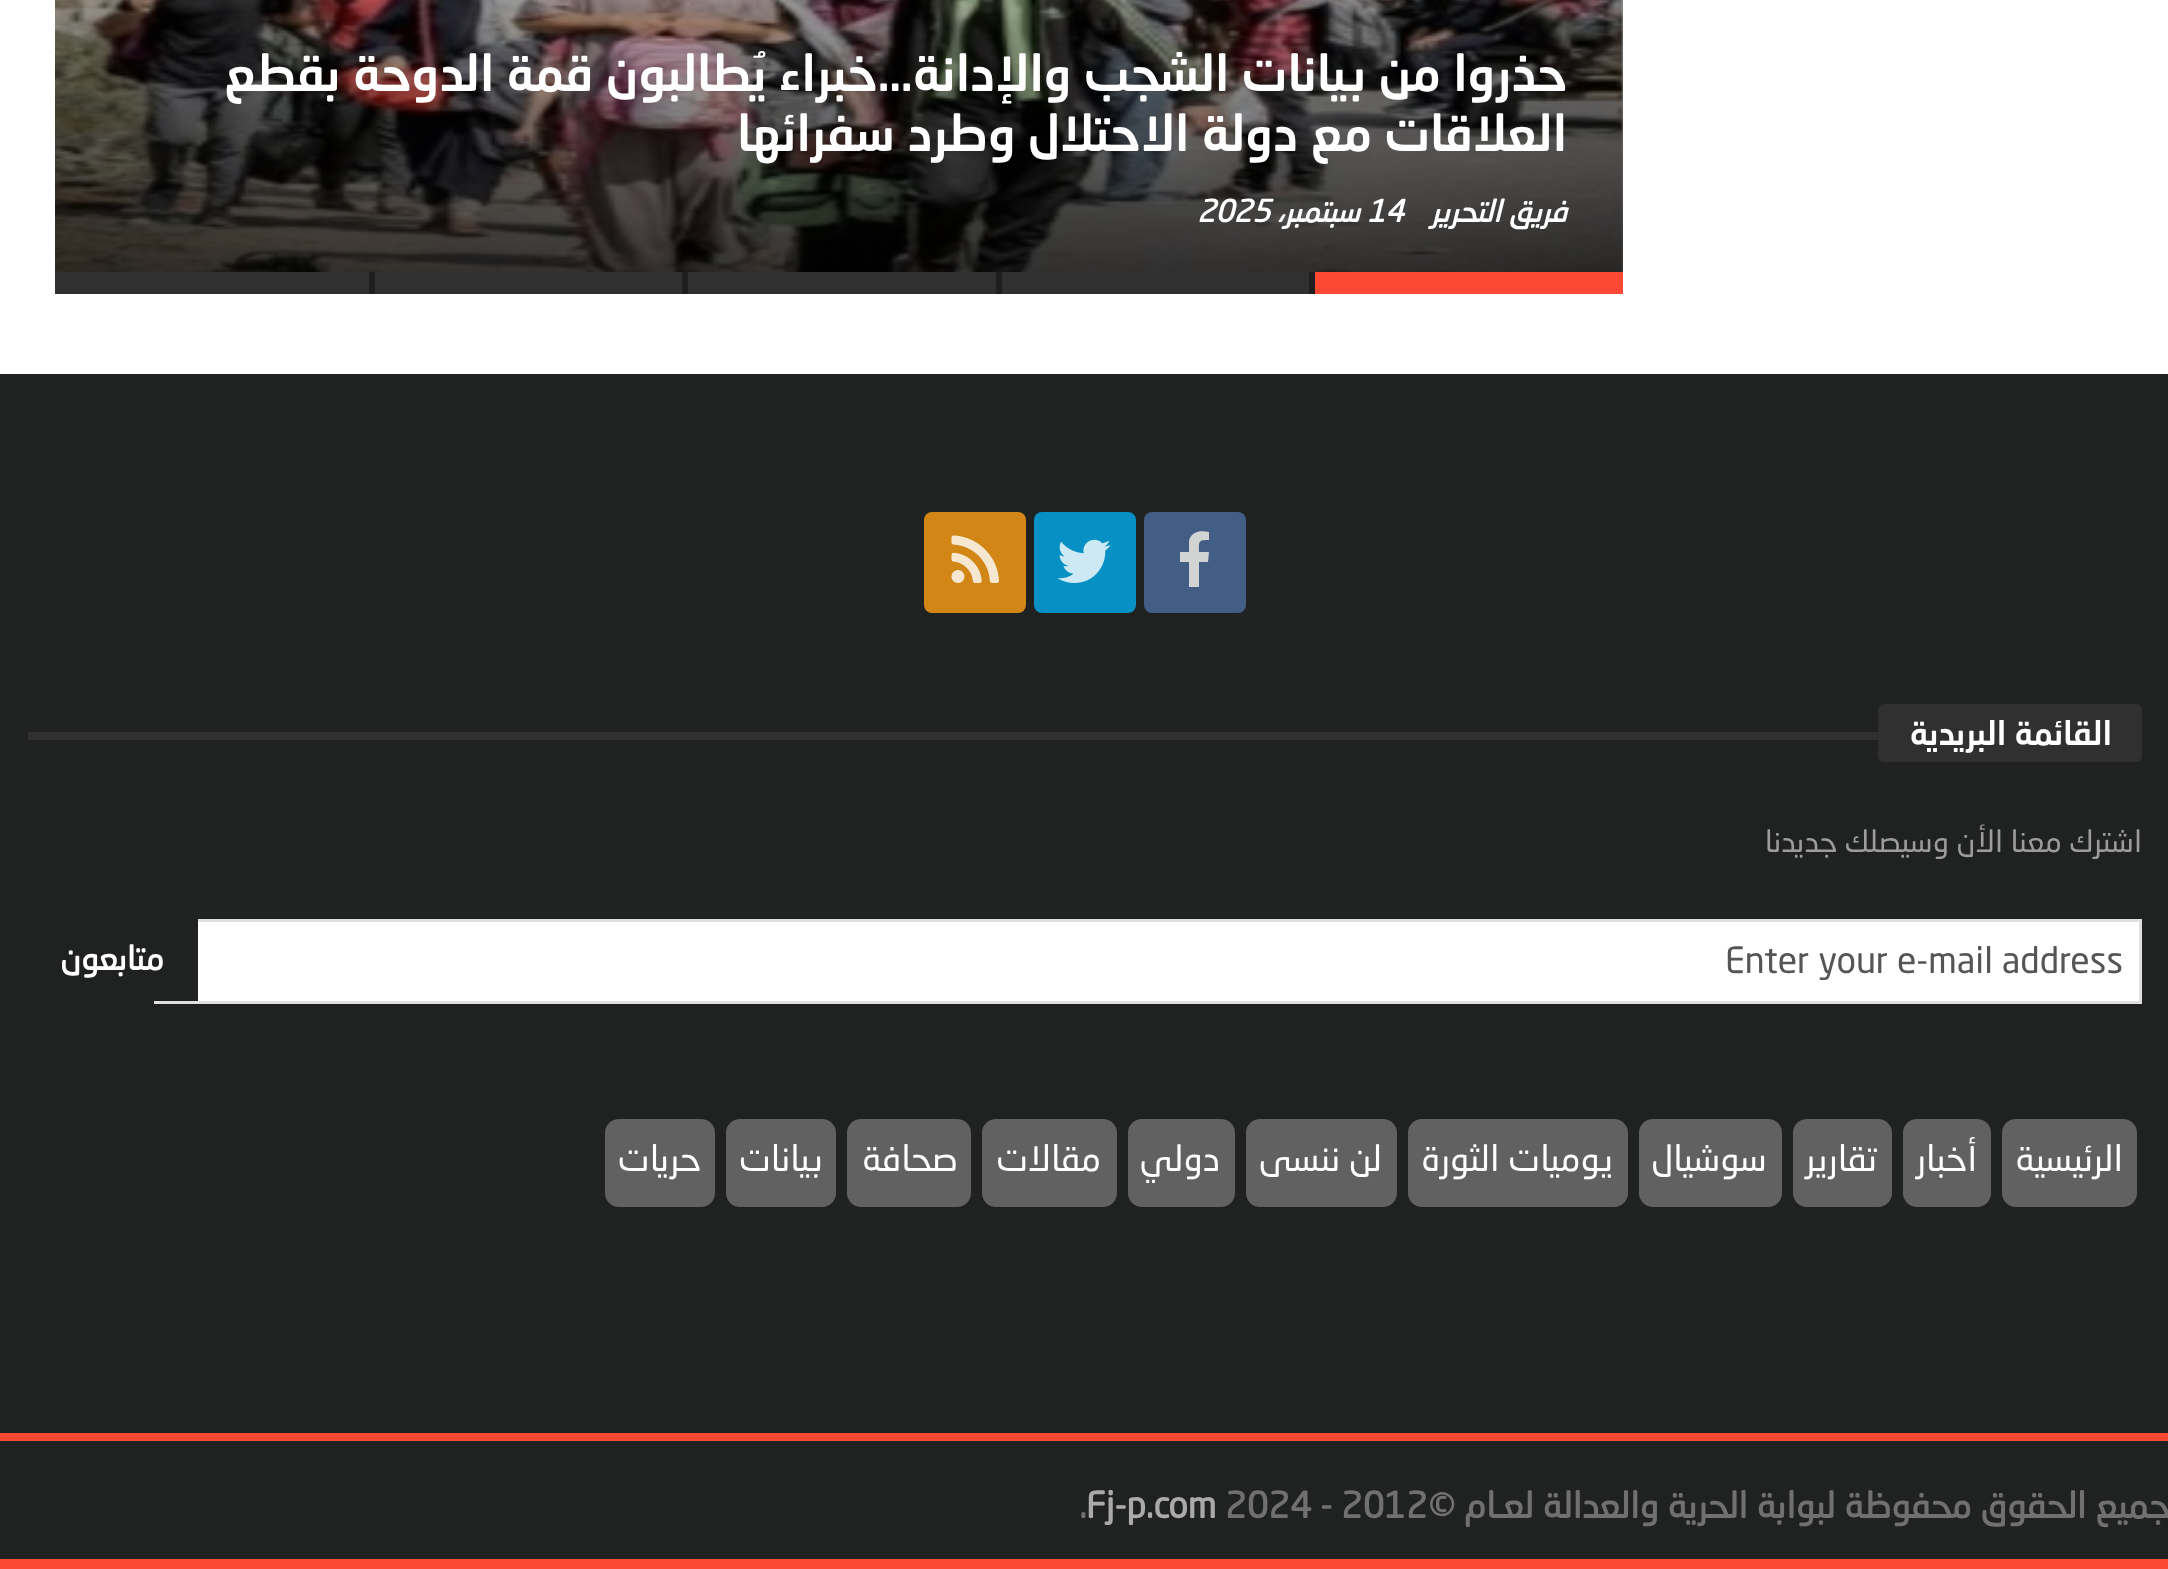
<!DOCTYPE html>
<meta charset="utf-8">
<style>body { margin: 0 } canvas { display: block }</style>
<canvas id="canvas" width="2168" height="1569"></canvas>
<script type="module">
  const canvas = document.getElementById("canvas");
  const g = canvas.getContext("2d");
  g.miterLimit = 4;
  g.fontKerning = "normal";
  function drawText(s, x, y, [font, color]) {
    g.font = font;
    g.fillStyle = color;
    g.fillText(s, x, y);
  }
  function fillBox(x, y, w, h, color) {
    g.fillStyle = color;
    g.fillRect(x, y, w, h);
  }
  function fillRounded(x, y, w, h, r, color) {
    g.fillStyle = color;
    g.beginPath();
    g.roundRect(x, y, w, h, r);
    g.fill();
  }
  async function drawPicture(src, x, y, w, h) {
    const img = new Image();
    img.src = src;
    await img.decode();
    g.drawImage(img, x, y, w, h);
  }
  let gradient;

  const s1 = ["500 49.5px 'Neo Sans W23'", "#FFFFFF"];
  const s2 = ["italic bold 30.25px 'Neo Sans W23'", "#FFFFFF"];
  const s3 = ["500 33px 'Neo Sans W23'", "#FFFFFF"];
  const s4 = ["30.25px 'Neo Sans W23'", "#9C9C9C"];
  const s5 = ["35.75px 'Neo Sans W23'", "#555555"];
  const s6 = ["bold 33px 'Neo Sans W23'", "#FFFFFF"];
  const s7 = ["35.75px 'Neo Sans W23'", "#FFFFFF"];
  const s8 = ["bold 35.75px 'Neo Sans W23'", "#707070"];
  const s9 = ["bold 35.75px 'Neo Sans W23'", "#AAAAAA"];

  fillBox(0, 0, 2168, 1569, "#FFFFFF");
  fillBox(1621, 0, 2, 272, "#CCCCCC");
  await drawPicture("pic1.png", 55, 0, 1568, 272);
  gradient = g.createLinearGradient(839, -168, 839, 272);
  gradient.addColorStop(0, "rgba(0, 0, 0, 0)");
  gradient.addColorStop(1, "rgba(0, 0, 0, 0.7)");
  g.fillStyle = gradient;
  g.fillRect(55, 0, 1568, 272);
  g.direction = "rtl";
  drawText("حذروا من بيانات الشجب والإدانة…خبراء يُطالبون قمة الدوحة بقطع", 1567, 91, s1);
  drawText("العلاقات مع دولة الاحتلال وطرد سفرائها", 1567, 151, s1);
  drawText("فريق التحرير", 1567, 222, s2);
  g.direction = "ltr";
  drawText("14", 1367, 222, s2);
  g.direction = "rtl";
  drawText("سبتمبر،", 1360, 222, s2);
  g.direction = "ltr";
  drawText("2025", 1197, 222, s2);
  fillBox(1315, 272, 308, 22, "#FB4834");
  fillBox(1309, 272, 6, 22, "#1F1F1F");
  fillBox(1002, 272, 307, 22, "#303030");
  fillBox(996, 272, 6, 22, "#1F1F1F");
  fillBox(688, 272, 308, 22, "#303030");
  fillBox(682, 272, 6, 22, "#1F1F1F");
  fillBox(375, 272, 307, 22, "#303030");
  fillBox(369, 272, 6, 22, "#1F1F1F");
  fillBox(55, 272, 314, 22, "#303030");
  fillBox(0, 374, 2168, 1059, "#202121");
  fillRounded(1144, 512, 102, 101, 8, "#425E84");
  g.fillStyle = "#D2D3D3";
  g.beginPath();
  g.moveTo(1209, 532);
  g.lineTo(1209, 540);
  g.bezierCurveTo(1198, 540, 1199, 541, 1199, 552);
  g.lineTo(1209, 552);
  g.lineTo(1208, 562);
  g.lineTo(1199, 562);
  g.lineTo(1199, 587);
  g.lineTo(1189, 587);
  g.lineTo(1189, 562);
  g.lineTo(1180, 562);
  g.lineTo(1180, 552);
  g.lineTo(1189, 552);
  g.lineTo(1189, 541);
  g.bezierCurveTo(1191, 531, 1201, 530, 1209, 532);
  g.closePath();
  g.fill();
  fillRounded(1034, 512, 102, 101, 8, "#0690C4");
  await drawPicture("pic2.png", 1057, 539, 54, 44);
  fillRounded(924, 512, 102, 101, 8, "#D18616");
  await drawPicture("pic3.png", 951, 535, 48, 48);
  fillBox(28, 732, 1850, 8, "#303030");
  fillRounded(1878, 704, 264, 58, 6, "#303030");
  g.direction = "rtl";
  drawText("القائمة البريدية", 2112, 745, s3);
  drawText("اشترك معنا الأن وسيصلك جديدنا", 2142, 852, s4);
  fillBox(198, 922, 1941, 79, "#FFFFFF");
  g.strokeStyle = "#E0E0E0";
  g.lineWidth = 3;
  g.strokeRect(155.5, 920.5, 1985, 82);
  g.direction = "ltr";
  drawText("Enter your e-mail address", 1725, 973, s5);
  fillBox(154, 919, 44, 82, "#202121");
  g.direction = "rtl";
  drawText("متابعون", 164, 970, s6);
  fillRounded(2002, 1119, 135, 88, 14, "#616161");
  drawText("الرئيسية", 2123, 1171, s7);
  fillRounded(1903, 1119, 88, 88, 14, "#616161");
  drawText("أخبار", 1977, 1171, s7);
  fillRounded(1793, 1119, 99, 88, 14, "#616161");
  drawText("تقارير", 1877, 1171, s7);
  fillRounded(1639, 1119, 143, 88, 14, "#616161");
  drawText("سوشيال", 1767, 1171, s7);
  fillRounded(1408, 1119, 220, 88, 14, "#616161");
  drawText("يوميات الثورة", 1613, 1171, s7);
  fillRounded(1246, 1119, 151, 88, 14, "#616161");
  drawText("لن ننسى", 1382, 1171, s7);
  fillRounded(1128, 1119, 107, 88, 14, "#616161");
  drawText("دولي", 1220, 1171, s7);
  fillRounded(982, 1119, 135, 88, 14, "#616161");
  drawText("مقالات", 1101, 1171, s7);
  fillRounded(847, 1119, 124, 88, 14, "#616161");
  drawText("صحافة", 958, 1171, s7);
  fillRounded(726, 1119, 110, 88, 14, "#616161");
  drawText("بيانات", 823, 1171, s7);
  fillRounded(605, 1119, 110, 88, 14, "#616161");
  drawText("حريات", 701, 1171, s7);
  fillBox(0, 1441, 2168, 118, "#202121");
  fillBox(0, 1433, 2168, 8, "#FB4834");
  drawText("جميع الحقوق محفوظة لبوابة الحرية والعدالة لعـام ©", 2170, 1518, s8);
  g.direction = "ltr";
  drawText("2024 - 2012", 1225, 1518, s8);
  drawText("Fj-p.com", 1086, 1518, s9);
  drawText(".", 1079, 1518, s8);
  fillBox(0, 1559, 2168, 10, "#FB4834");
</script>
